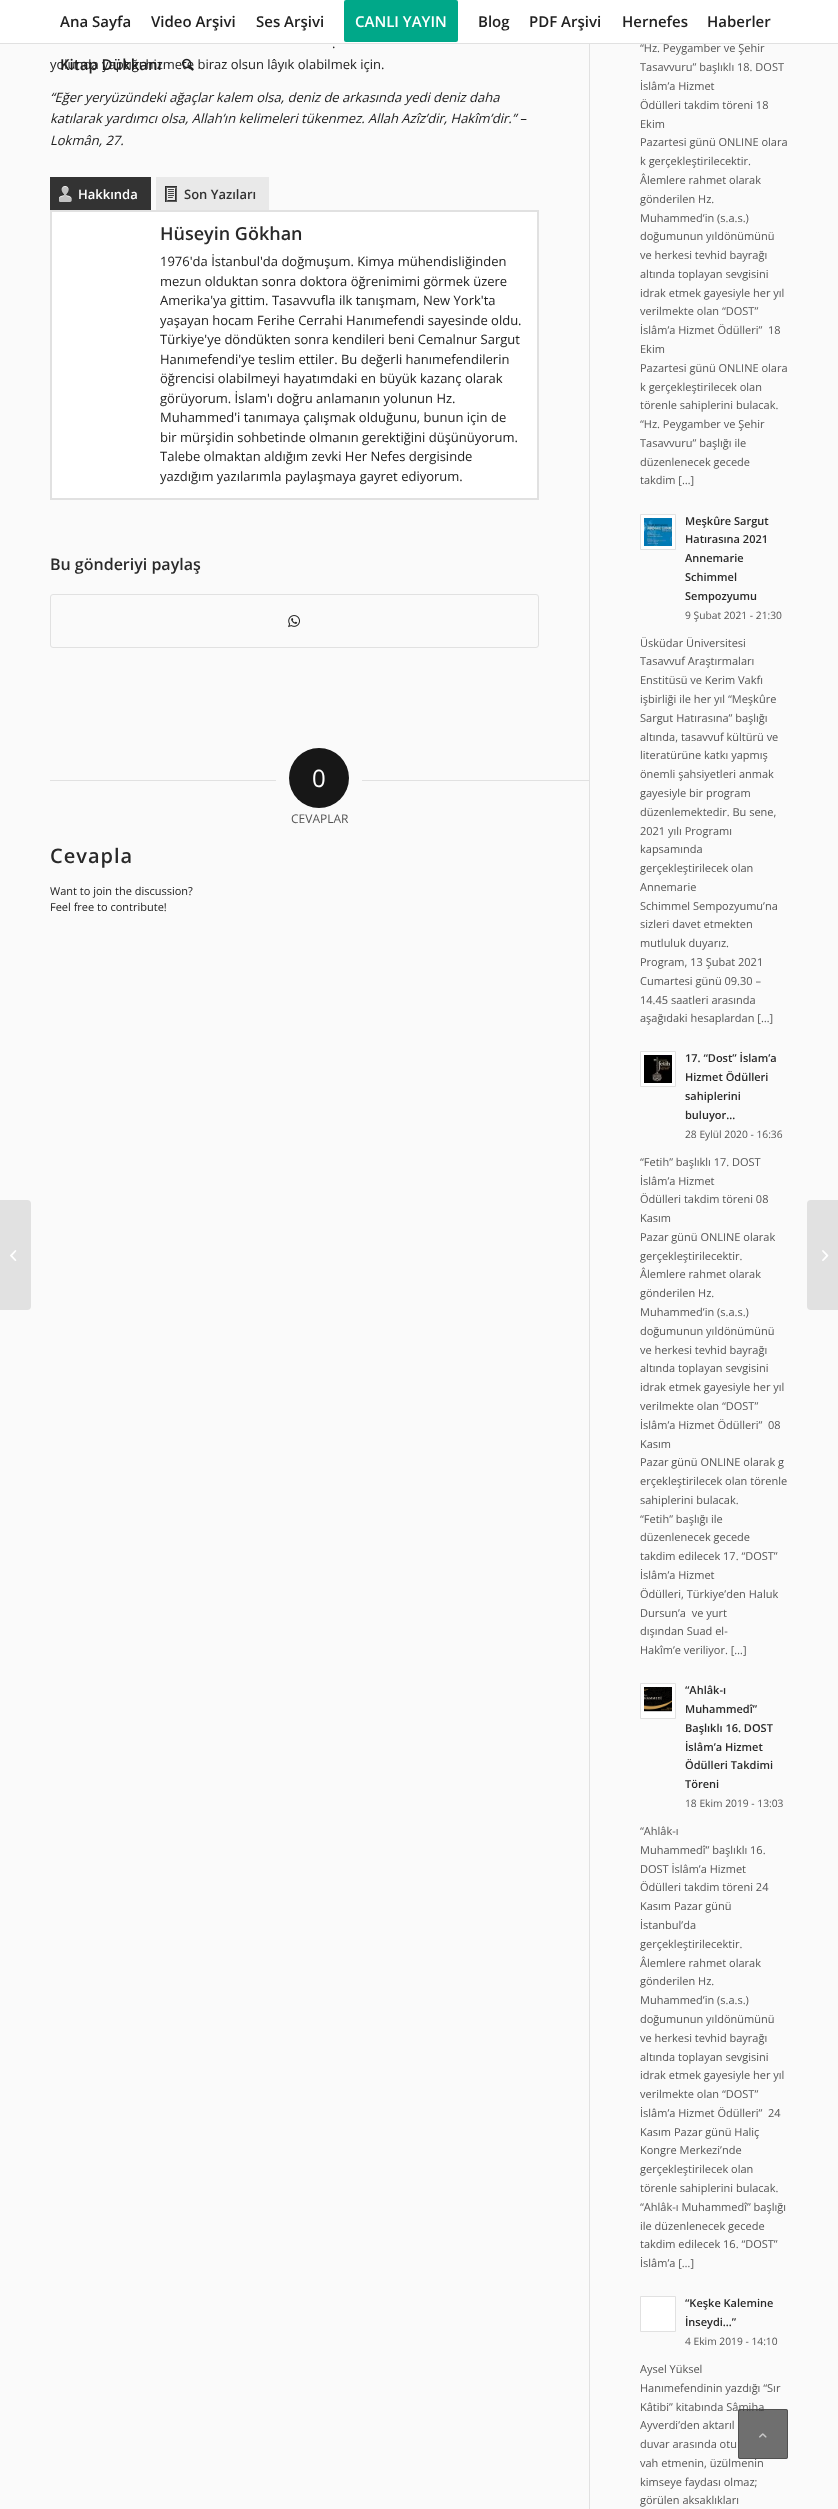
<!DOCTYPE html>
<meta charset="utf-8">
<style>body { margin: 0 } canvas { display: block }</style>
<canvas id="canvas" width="838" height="2509"></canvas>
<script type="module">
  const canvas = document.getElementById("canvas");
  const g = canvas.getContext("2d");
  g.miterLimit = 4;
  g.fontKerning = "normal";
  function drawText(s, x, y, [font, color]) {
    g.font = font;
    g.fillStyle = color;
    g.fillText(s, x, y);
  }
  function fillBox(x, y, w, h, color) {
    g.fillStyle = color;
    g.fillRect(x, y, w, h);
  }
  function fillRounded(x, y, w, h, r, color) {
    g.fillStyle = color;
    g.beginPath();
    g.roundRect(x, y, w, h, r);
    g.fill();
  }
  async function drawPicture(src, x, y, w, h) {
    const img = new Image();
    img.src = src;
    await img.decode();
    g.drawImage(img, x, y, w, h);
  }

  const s1 = ["11px Open Sans", "#545454"];
  const s2 = ["600 15px Open Sans", "#212121"];
  const s3 = ["600 15px Open Sans", "#FFFFFF"];
  const s4 = ["13px Open Sans", "#212121"];
  const s5 = ["italic 13px Open Sans", "#212121"];
  const s6 = ["600 13px Open Sans", "#FFFFFF"];
  const s7 = ["600 13px Open Sans", "#333333"];
  const s8 = ["600 18px Open Sans", "#292929"];
  const s9 = ["600 16px Open Sans", "#292929"];
  const s10 = ["24px Open Sans", "#FFFFFF"];
  const s11 = ["12px Open Sans", "#545454"];
  const s12 = ["600 20px Open Sans", "#292929"];
  const s13 = ["11px Open Sans", "#212121"];
  const s14 = ["600 11px Open Sans", "#292929"];
  const s15 = ["10.25px Open Sans", "#545454"];

  fillBox(0, 0, 838, 2509, "#FAFAFA");
  fillBox(0, 0, 838, 43, "#FFFFFF");
  drawText("“Hz. Peygamber ve Şehir", 640, 52, s1);
  fillBox(0, 43, 838, 1, "#E1E1E1");
  drawText("Ana Sayfa", 60, 27, s2);
  drawText("Video Arşivi", 151, 27, s2);
  drawText("Ses Arşivi", 256, 27, s2);
  g.fillStyle = "#00A889";
  g.beginPath();
  g.roundRect(345, 1, 112, 40, 1);
  g.fill();
  g.strokeStyle = "#00A889";
  g.lineWidth = 2;
  g.stroke();
  drawText("CANLI YAYIN", 355, 27, s3);
  drawText("Blog", 478, 27, s2);
  drawText("PDF Arşivi", 529, 27, s2);
  drawText("Hernefes", 622, 27, s2);
  drawText("Haberler", 707, 27, s2);
  drawText("yolunda yaptığı hizmete biraz olsun lâyık olabilmek için.", 50, 69, s4);
  drawText("Kitap Dükkanı", 60, 70, s2);
  await drawPicture("pic1.png", 182, 58, 12, 13);
  g.fillStyle = "#E1E1E1";
  g.beginPath();
  g.roundRect(0, 1200, 31, 110, [0, 4, 4, 0]);
  g.fill();
  await drawPicture("pic2.png", 10, 1250, 7, 11);
  drawText(".", 332, 48, s4);
  drawText("“Eğer yeryüzündeki ağaçlar kalem olsa, deniz de arkasında yedi deniz daha", 50, 102, s5);
  drawText("katılarak yardımcı olsa, Allah’ın kelimeleri tükenmez. Allah Azîz’dir, Hakîm’dir.” –", 50, 123, s5);
  drawText("Lokmân, 27.", 50, 145, s5);
  fillBox(50, 177, 101, 33, "#333333");
  await drawPicture("pic3.png", 59, 186, 13, 16);
  drawText("Hakkında", 78, 199, s6);
  fillBox(156, 177, 113, 33, "#E9E9E9");
  await drawPicture("pic4.png", 165, 186, 12, 16);
  drawText("Son Yazıları", 184, 199, s7);
  g.fillStyle = "#FFFFFF";
  g.beginPath();
  g.rect(51, 211, 487, 288);
  g.fill();
  g.strokeStyle = "#E1E1E1";
  g.stroke();
  drawText("Hüseyin Gökhan", 160, 240, s8);
  drawText("1976'da İstanbul'da doğmuşum. Kimya mühendisliğinden", 160, 266, s4);
  drawText("mezun olduktan sonra doktora öğrenimimi görmek üzere", 160, 286, s4);
  drawText("Amerika'ya gittim. Tasavvufla ilk tanışmam, New York'ta", 160, 305, s4);
  drawText("yaşayan hocam Ferihe Cerrahi Hanımefendi sayesinde oldu.", 160, 325, s4);
  drawText("Türkiye'ye döndükten sonra kendileri beni Cemalnur Sargut", 160, 344, s4);
  drawText("Hanımefendi'ye teslim ettiler. Bu değerli hanımefendilerin", 160, 364, s4);
  drawText("öğrencisi olabilmeyi hayatımdaki en büyük kazanç olarak", 160, 383, s4);
  drawText("görüyorum. İslam'ı doğru anlamanın yolunun Hz.", 160, 403, s4);
  drawText("Muhammed'i tanımaya çalışmak olduğunu, bunun için de", 160, 422, s4);
  drawText("bir mürşidin sohbetinde olmanın gerektiğini düşünüyorum.", 160, 442, s4);
  drawText("Talebe olmaktan aldığım zevki Her Nefes dergisinde", 160, 461, s4);
  drawText("yazdığım yazılarımla paylaşmaya gayret ediyorum.", 160, 481, s4);
  drawText("Bu gönderiyi paylaş", 50, 570, s9);
  g.beginPath();
  g.roundRect(50.5, 594.5, 488, 53, 2.5);
  g.lineWidth = 1;
  g.stroke();
  await drawPicture("pic5.png", 288, 615, 12, 13);
  fillBox(50, 780, 226, 1, "#E1E1E1");
  g.fillStyle = "#171717";
  g.beginPath();
  g.arc(319, 778, 30, 0, Math.PI * 2);
  g.fill();
  drawText("0", 312, 787, s10);
  fillBox(362, 780, 227, 1, "#E1E1E1");
  drawText("CEVAPLAR", 291, 823, s11);
  g.letterSpacing = "1px";
  drawText("Cevapla", 50, 863, s12);
  g.letterSpacing = "0px";
  drawText("Want to join the discussion?", 50, 895, s13);
  drawText("Feel free to contribute!", 50, 911, s13);
  fillBox(589, 44, 1, 2465, "#E1E1E1");
  drawText("Tasavvuru” başlıklı 18. DOST", 640, 71, s1);
  drawText("İslâm’a Hizmet", 640, 90, s1);
  drawText("Ödülleri takdim töreni 18", 640, 109, s1);
  drawText("Ekim", 640, 128, s1);
  drawText("Pazartesi günü ONLINE olara", 640, 146, s1);
  drawText("k gerçekleştirilecektir.", 640, 165, s1);
  drawText("Âlemlere rahmet olarak", 640, 184, s1);
  drawText("gönderilen Hz.", 640, 203, s1);
  drawText("Muhammed’in (s.a.s.)", 640, 222, s1);
  drawText("doğumunun yıldönümünü", 640, 240, s1);
  drawText("ve herkesi tevhid bayrağı", 640, 259, s1);
  drawText("altında toplayan sevgisini", 640, 278, s1);
  drawText("idrak etmek gayesiyle her yıl", 640, 297, s1);
  drawText("verilmekte olan “DOST”", 640, 315, s1);
  drawText("İslâm’a Hizmet Ödülleri”  18", 640, 334, s1);
  drawText("Ekim", 640, 353, s1);
  drawText("Pazartesi günü ONLINE olara", 640, 372, s1);
  drawText("k gerçekleştirilecek olan", 640, 391, s1);
  drawText("törenle sahiplerini bulacak.", 640, 409, s1);
  drawText("“Hz. Peygamber ve Şehir", 640, 428, s1);
  drawText("Tasavvuru” başlığı ile", 640, 447, s1);
  drawText("düzenlenecek gecede", 640, 466, s1);
  drawText("takdim […]", 640, 484, s1);
  g.fillStyle = "#FFFFFF";
  g.beginPath();
  g.rect(640.5, 514.5, 35, 35);
  g.fill();
  g.stroke();
  await drawPicture("pic6.png", 644, 518, 28, 28);
  drawText("Meşkûre Sargut", 685, 525, s14);
  drawText("Hatırasına 2021", 685, 543, s14);
  drawText("Annemarie", 685, 562, s14);
  drawText("Schimmel", 685, 581, s14);
  drawText("Sempozyumu", 685, 600, s14);
  drawText("9 Şubat 2021 - 21:30", 685, 619, s15);
  drawText("Üsküdar Üniversitesi", 640, 647, s1);
  drawText("Tasavvuf Araştırmaları", 640, 665, s1);
  drawText("Enstitüsü ve Kerim Vakfı", 640, 684, s1);
  drawText("işbirliği ile her yıl “Meşkûre", 640, 703, s1);
  drawText("Sargut Hatırasına” başlığı", 640, 722, s1);
  drawText("altında, tasavvuf kültürü ve", 640, 741, s1);
  drawText("literatürüne katkı yapmış", 640, 759, s1);
  drawText("önemli şahsiyetleri anmak", 640, 778, s1);
  drawText("gayesiyle bir program", 640, 797, s1);
  drawText("düzenlemektedir. Bu sene,", 640, 816, s1);
  drawText("2021 yılı Programı", 640, 835, s1);
  drawText("kapsamında", 640, 853, s1);
  drawText("gerçekleştirilecek olan", 640, 872, s1);
  drawText("Annemarie", 640, 891, s1);
  drawText("Schimmel Sempozyumu’na", 640, 910, s1);
  drawText("sizleri davet etmekten", 640, 928, s1);
  drawText("mutluluk duyarız.", 640, 947, s1);
  drawText("Program, 13 Şubat 2021", 640, 966, s1);
  drawText("Cumartesi günü 09.30 –", 640, 985, s1);
  drawText("14.45 saatleri arasında", 640, 1004, s1);
  drawText("aşağıdaki hesaplardan […]", 640, 1022, s1);
  g.fillStyle = "#FFFFFF";
  g.beginPath();
  g.rect(640.5, 1051.5, 35, 35);
  g.fill();
  g.stroke();
  await drawPicture("pic7.png", 644, 1055, 28, 28);
  drawText("17. “Dost” İslam’a", 685, 1062, s14);
  drawText("Hizmet Ödülleri", 685, 1081, s14);
  drawText("sahiplerini", 685, 1100, s14);
  drawText("buluyor…", 685, 1119, s14);
  drawText("28 Eylül 2020 - 16:36", 685, 1138, s15);
  drawText("“Fetih” başlıklı 17. DOST", 640, 1166, s1);
  drawText("İslâm’a Hizmet", 640, 1185, s1);
  drawText("Ödülleri takdim töreni 08", 640, 1203, s1);
  drawText("Kasım", 640, 1222, s1);
  drawText("Pazar günü ONLINE olarak", 640, 1241, s1);
  drawText("gerçekleştirilecektir.", 640, 1260, s1);
  drawText("Âlemlere rahmet olarak", 640, 1278, s1);
  drawText("gönderilen Hz.", 640, 1297, s1);
  drawText("Muhammed’in (s.a.s.)", 640, 1316, s1);
  drawText("doğumunun yıldönümünü", 640, 1335, s1);
  drawText("ve herkesi tevhid bayrağı", 640, 1354, s1);
  drawText("altında toplayan sevgisini", 640, 1372, s1);
  drawText("idrak etmek gayesiyle her yıl", 640, 1391, s1);
  drawText("verilmekte olan “DOST”", 640, 1410, s1);
  drawText("İslâm’a Hizmet Ödülleri”  08", 640, 1429, s1);
  drawText("Kasım", 640, 1448, s1);
  drawText("Pazar günü ONLINE olarak g", 640, 1466, s1);
  drawText("erçekleştirilecek olan törenle", 640, 1485, s1);
  drawText("sahiplerini bulacak.", 640, 1504, s1);
  drawText("“Fetih” başlığı ile", 640, 1523, s1);
  drawText("düzenlenecek gecede", 640, 1541, s1);
  drawText("takdim edilecek 17. “DOST”", 640, 1560, s1);
  drawText("İslâm’a Hizmet", 640, 1579, s1);
  drawText("Ödülleri, Türkiye’den Haluk", 640, 1598, s1);
  drawText("Dursun’a  ve yurt", 640, 1617, s1);
  drawText("dışından Suad el-", 640, 1635, s1);
  drawText("Hakîm’e veriliyor. […]", 640, 1654, s1);
  g.fillStyle = "#FFFFFF";
  g.beginPath();
  g.rect(640.5, 1683.5, 35, 35);
  g.fill();
  g.stroke();
  await drawPicture("pic8.png", 644, 1687, 28, 25);
  drawText("“Ahlâk-ı", 685, 1694, s14);
  drawText("Muhammedî”", 685, 1713, s14);
  drawText("Başlıklı 16. DOST", 685, 1732, s14);
  drawText("İslâm’a Hizmet", 685, 1751, s14);
  drawText("Ödülleri Takdimi", 685, 1769, s14);
  drawText("Töreni", 685, 1788, s14);
  drawText("18 Ekim 2019 - 13:03", 685, 1807, s15);
  drawText("“Ahlâk-ı", 640, 1835, s1);
  drawText("Muhammedî” başlıklı 16.", 640, 1854, s1);
  drawText("DOST İslâm’a Hizmet", 640, 1873, s1);
  drawText("Ödülleri takdim töreni 24", 640, 1891, s1);
  drawText("Kasım Pazar günü", 640, 1910, s1);
  drawText("İstanbul’da", 640, 1929, s1);
  drawText("gerçekleştirilecektir.", 640, 1948, s1);
  drawText("Âlemlere rahmet olarak", 640, 1967, s1);
  drawText("gönderilen Hz.", 640, 1985, s1);
  drawText("Muhammed’in (s.a.s.)", 640, 2004, s1);
  drawText("doğumunun yıldönümünü", 640, 2023, s1);
  drawText("ve herkesi tevhid bayrağı", 640, 2042, s1);
  drawText("altında toplayan sevgisini", 640, 2061, s1);
  drawText("idrak etmek gayesiyle her yıl", 640, 2079, s1);
  drawText("verilmekte olan “DOST”", 640, 2098, s1);
  drawText("İslâm’a Hizmet Ödülleri”  24", 640, 2117, s1);
  drawText("Kasım Pazar günü Haliç", 640, 2136, s1);
  drawText("Kongre Merkezi’nde", 640, 2154, s1);
  drawText("gerçekleştirilecek olan", 640, 2173, s1);
  drawText("törenle sahiplerini bulacak.", 640, 2192, s1);
  drawText("“Ahlâk-ı Muhammedî” başlığı", 640, 2211, s1);
  drawText("ile düzenlenecek gecede", 640, 2230, s1);
  drawText("takdim edilecek 16. “DOST”", 640, 2248, s1);
  drawText("İslâm’a […]", 640, 2267, s1);
  g.fillStyle = "#FFFFFF";
  g.beginPath();
  g.rect(640.5, 2296.5, 35, 35);
  g.fill();
  g.stroke();
  drawText("“Keşke Kalemine", 685, 2307, s14);
  drawText("İnseydi…”", 685, 2326, s14);
  drawText("4 Ekim 2019 - 14:10", 685, 2345, s15);
  drawText("Aysel Yüksel", 640, 2373, s1);
  drawText("Hanımefendinin yazdığı “Sır", 640, 2392, s1);
  drawText("Kâtibi” kitabında Sâmiha", 640, 2411, s1);
  drawText("Ayverdi’den aktarıl", 640, 2429, s1);
  drawText("duvar arasında otu", 640, 2448, s1);
  drawText("vah etmenin, üzülmenin", 640, 2467, s1);
  drawText("kimseye faydası olmaz;", 640, 2486, s1);
  drawText("görülen aksaklıkları", 640, 2504, s1);
  g.fillStyle = "#E1E1E1";
  g.beginPath();
  g.roundRect(807, 1200, 31, 110, [4, 0, 0, 4]);
  g.fill();
  await drawPicture("pic9.png", 822, 1250, 7, 11);
  fillRounded(738, 2409, 50, 50, 2, "rgba(51, 51, 51, 0.7)");
  g.beginPath();
  g.roundRect(738.5, 2409.5, 49, 49, 1.5);
  g.strokeStyle = "rgba(68, 68, 68, 0.7)";
  g.stroke();
  await drawPicture("pic10.png", 759, 2433, 8, 5);
</script>
